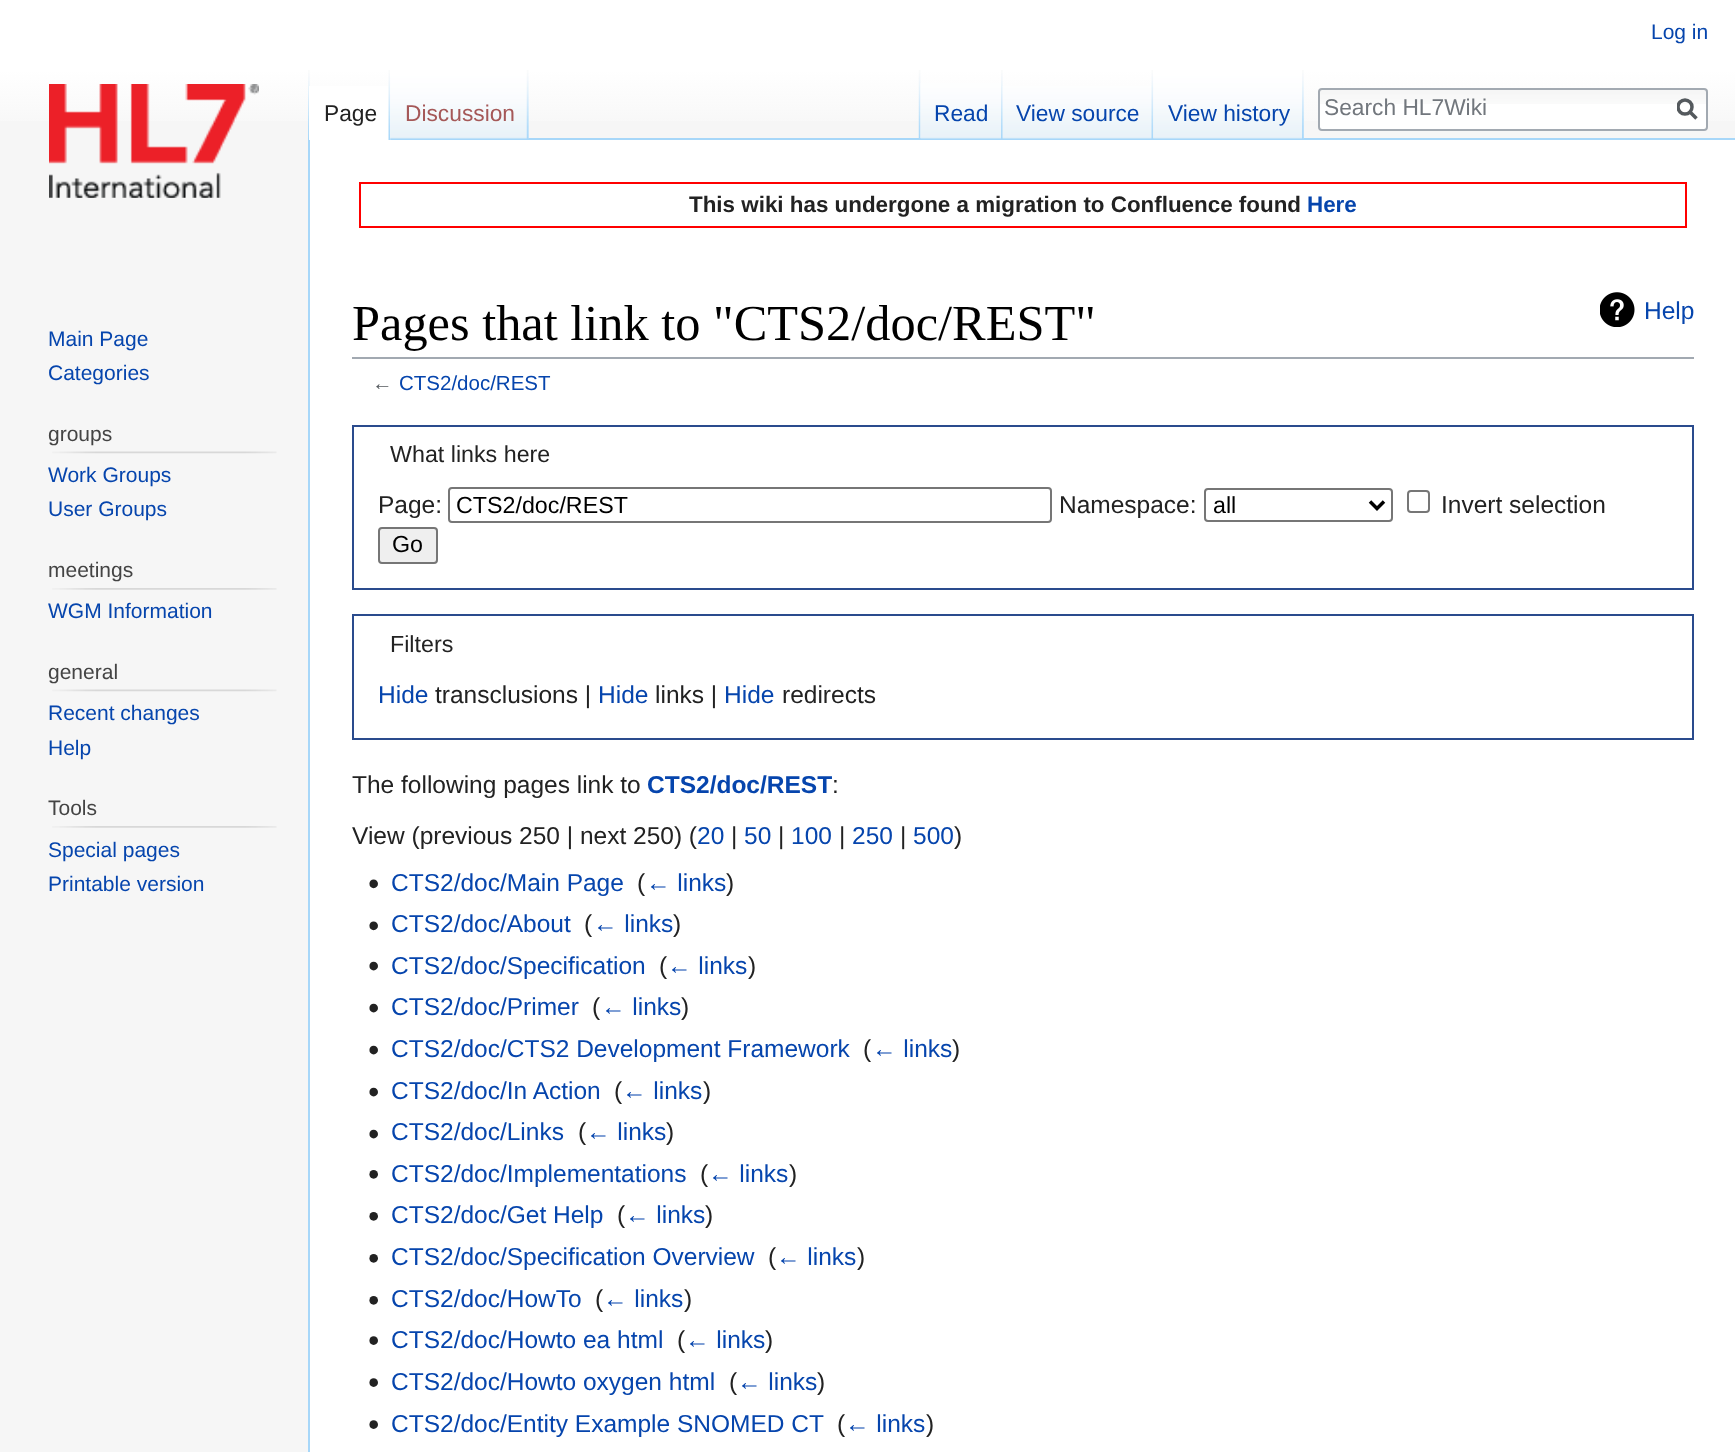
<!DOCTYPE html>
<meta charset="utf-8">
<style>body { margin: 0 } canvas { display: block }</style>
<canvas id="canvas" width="1735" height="1452"></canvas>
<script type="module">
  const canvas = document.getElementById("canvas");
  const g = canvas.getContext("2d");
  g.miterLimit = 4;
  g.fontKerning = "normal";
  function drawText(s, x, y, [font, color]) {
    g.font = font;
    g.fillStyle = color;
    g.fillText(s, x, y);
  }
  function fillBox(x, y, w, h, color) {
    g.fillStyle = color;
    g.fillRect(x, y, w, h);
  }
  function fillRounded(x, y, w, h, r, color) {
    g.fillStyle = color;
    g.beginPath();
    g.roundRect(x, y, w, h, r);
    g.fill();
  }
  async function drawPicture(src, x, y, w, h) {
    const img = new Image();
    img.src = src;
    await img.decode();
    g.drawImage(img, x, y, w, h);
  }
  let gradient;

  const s1 = ["21px Liberation Sans", "#0645AD"];
  const s2 = ["22.75px Liberation Sans", "#222222"];
  const s3 = ["22.75px Liberation Sans", "#A55858"];
  const s4 = ["22.75px Liberation Sans", "#0645AD"];
  const s5 = ["22.75px Liberation Sans", "#72777D"];
  const s6 = ["21px Liberation Sans", "#444444"];
  const s7 = ["bold 22.4px Liberation Sans", "#222222"];
  const s8 = ["bold 22.4px Liberation Sans", "#0645AD"];
  const s9 = ["50.4px Liberation Serif", "#000000"];
  const s10 = ["24.5px Liberation Sans", "#0645AD"];
  const s11 = ["20.5px Liberation Sans", "#54595D"];
  const s12 = ["20.5px Liberation Sans", "#0645AD"];
  const s13 = ["23.25px Liberation Sans", "#222222"];
  const s14 = ["24.5px Liberation Sans", "#222222"];
  const s15 = ["23.25px Liberation Sans", "#000000"];
  const s16 = ["bold 24.5px Liberation Sans", "#0645AD"];

  fillBox(0, 0, 1735, 1452, "#F6F6F6");
  gradient = g.createLinearGradient(868, 0, 868, 140);
  gradient.addColorStop(0.5, "#FFFFFF");
  gradient.addColorStop(1, "#F6F6F6");
  g.fillStyle = gradient;
  g.fillRect(0, 0, 1735, 121);
  drawText("Log in", 1651, 39, s1);
  await drawPicture("pic1.png", 308, 70, 2, 68);
  await drawPicture("pic2.png", 528, 70, 1, 68);
  fillBox(308, 138, 2, 1314, "#A7D7F9");
  fillBox(309, 86, 82, 54, "#FFFFFF");
  await drawPicture("pic3.png", 388, 70, 3, 70);
  drawText("Page", 324, 121, s2);
  fillBox(528, 138, 1207, 2, "#A7D7F9");
  await drawPicture("pic4.png", 390, 70, 139, 70);
  await drawPicture("pic5.png", 526, 70, 3, 69);
  drawText("Discussion", 405, 121, s3);
  await drawPicture("pic6.png", 918, 70, 3, 68);
  await drawPicture("pic7.png", 1303, 70, 1, 68);
  await drawPicture("pic8.png", 920, 83, 83, 56);
  await drawPicture("pic9.png", 1001, 70, 2, 69);
  drawText("Read", 934, 121, s4);
  await drawPicture("pic10.png", 1002, 86, 152, 53);
  await drawPicture("pic11.png", 1151, 70, 3, 69);
  drawText("View source", 1016, 121, s4);
  await drawPicture("pic12.png", 1153, 70, 151, 69);
  await drawPicture("pic13.png", 1302, 70, 2, 69);
  drawText("View history", 1168, 121, s4);
  fillRounded(1318, 88, 390, 43, 4, "#FFFFFF");
  await drawPicture("pic14.png", 1318, 89, 390, 15);
  g.beginPath();
  g.roundRect(1319, 89, 388, 41, 3);
  g.strokeStyle = "#A2A9B1";
  g.lineWidth = 2;
  g.stroke();
  drawText("Search HL7Wiki", 1324, 115, s5);
  g.beginPath();
  g.moveTo(1696.5, 118.5);
  g.lineTo(1689.5, 111.5);
  g.strokeStyle = "#54595D";
  g.lineWidth = 3.5;
  g.stroke();
  g.save();
  g.beginPath();
  g.rect(1677, 98, 21, 23);
  g.clip();
  g.beginPath();
  g.arc(1685, 107, 7, 0, Math.PI * 2);
  g.stroke();
  g.restore();
  await drawPicture("pic15.png", 49, 84, 210, 114);
  drawText("Main Page", 48, 346, s1);
  drawText("Categories", 48, 380, s1);
  drawText("groups", 48, 441, s6);
  await drawPicture("pic16.png", 52, 451, 225, 3);
  drawText("Work Groups", 48, 482, s1);
  drawText("User Groups", 48, 516, s1);
  drawText("meetings", 48, 577, s6);
  await drawPicture("pic17.png", 52, 588, 225, 2);
  drawText("WGM Information", 48, 618, s1);
  drawText("general", 48, 679, s6);
  await drawPicture("pic16.png", 52, 689, 225, 3);
  drawText("Recent changes", 48, 720, s1);
  drawText("Help", 48, 755, s1);
  drawText("Tools", 48, 815, s6);
  await drawPicture("pic17.png", 52, 826, 225, 2);
  drawText("Special pages", 48, 857, s1);
  drawText("Printable version", 48, 891, s1);
  fillBox(310, 140, 1425, 1312, "#FFFFFF");
  g.strokeStyle = "#FF0000";
  g.lineWidth = 2;
  g.strokeRect(360, 183, 1326, 44);
  drawText("This wiki has undergone a migration to Confluence found", 689, 212, s7);
  drawText("Here", 1307, 212, s8);
  fillBox(352, 357, 1342, 2, "#A2A9B1");
  drawText("Pages that link to \"CTS2/doc/REST\"", 352, 340, s9);
  await drawPicture("pic18.png", 1600, 292, 35, 35);
  drawText("Help", 1644, 319, s10);
  drawText("←", 372, 390, s11);
  drawText("CTS2/doc/REST", 399, 390, s12);
  g.strokeStyle = "#2A4B8D";
  g.strokeRect(353, 426, 1340, 163);
  drawText("What links here", 390, 462, s13);
  drawText("Page:", 378, 513, s14);
  g.beginPath();
  g.roundRect(449, 488, 602, 34, 3);
  g.strokeStyle = "#767676";
  g.stroke();
  drawText("CTS2/doc/REST", 456, 513, s15);
  drawText("Namespace:", 1059, 513, s14);
  g.beginPath();
  g.roundRect(1205, 489, 187, 32, 3);
  g.stroke();
  g.beginPath();
  g.moveTo(1370, 501.5);
  g.lineTo(1377, 508.5);
  g.lineTo(1384, 501.5);
  g.strokeStyle = "#000000";
  g.lineWidth = 3.5;
  g.stroke();
  drawText("all", 1213, 513, s15);
  g.beginPath();
  g.roundRect(1408, 491, 21, 21, 3);
  g.strokeStyle = "#767676";
  g.lineWidth = 2;
  g.stroke();
  drawText("Invert selection", 1441, 513, s14);
  g.fillStyle = "#EFEFEF";
  g.beginPath();
  g.roundRect(379, 528, 58, 35, 3);
  g.fill();
  g.stroke();
  drawText("Go", 392, 552, s15);
  g.strokeStyle = "#2A4B8D";
  g.strokeRect(353, 615, 1340, 124);
  drawText("Filters", 390, 652, s13);
  drawText("Hide", 378, 703, s10);
  drawText("transclusions |", 435, 703, s14);
  drawText("Hide", 598, 703, s10);
  drawText("links |", 655, 703, s14);
  drawText("Hide", 724, 703, s10);
  drawText("redirects", 782, 703, s14);
  drawText("The following pages link to", 352, 793, s14);
  drawText("CTS2/doc/REST", 647, 793, s16);
  drawText(":", 832, 793, s14);
  drawText("View (previous 250 | next 250) (", 352, 844, s14);
  drawText("20", 697, 844, s10);
  drawText("|", 731, 844, s14);
  drawText("50", 744, 844, s10);
  drawText("|", 778, 844, s14);
  drawText("100", 791, 844, s10);
  drawText("|", 839, 844, s14);
  drawText("250", 852, 844, s10);
  drawText("|", 900, 844, s14);
  drawText("500", 913, 844, s10);
  drawText(")", 954, 844, s14);
  await drawPicture("pic19.png", 369, 879, 9, 10);
  drawText("CTS2/doc/Main Page", 391, 891, s10);
  drawText("(", 637, 891, s14);
  drawText("← links", 646, 891, s10);
  drawText(")", 726, 891, s14);
  await drawPicture("pic19.png", 369, 921, 9, 10);
  drawText("CTS2/doc/About", 391, 932, s10);
  drawText("(", 584, 932, s14);
  drawText("← links", 593, 932, s10);
  drawText(")", 673, 932, s14);
  await drawPicture("pic20.png", 369, 961, 9, 10);
  drawText("CTS2/doc/Specification", 391, 974, s10);
  drawText("(", 659, 974, s14);
  drawText("← links", 667, 974, s10);
  drawText(")", 748, 974, s14);
  await drawPicture("pic20.png", 369, 1003, 9, 10);
  drawText("CTS2/doc/Primer", 391, 1015, s10);
  drawText("(", 592, 1015, s14);
  drawText("← links", 601, 1015, s10);
  drawText(")", 681, 1015, s14);
  await drawPicture("pic20.png", 369, 1045, 9, 10);
  drawText("CTS2/doc/CTS2 Development Framework", 391, 1057, s10);
  drawText("(", 863, 1057, s14);
  drawText("← links", 872, 1057, s10);
  drawText(")", 952, 1057, s14);
  await drawPicture("pic20.png", 369, 1087, 9, 10);
  drawText("CTS2/doc/In Action", 391, 1099, s10);
  drawText("(", 614, 1099, s14);
  drawText("← links", 622, 1099, s10);
  drawText(")", 703, 1099, s14);
  await drawPicture("pic20.png", 369, 1129, 9, 10);
  drawText("CTS2/doc/Links", 391, 1140, s10);
  drawText("(", 578, 1140, s14);
  drawText("← links", 586, 1140, s10);
  drawText(")", 666, 1140, s14);
  await drawPicture("pic21.png", 369, 1170, 9, 9);
  drawText("CTS2/doc/Implementations", 391, 1182, s10);
  drawText("(", 700, 1182, s14);
  drawText("← links", 708, 1182, s10);
  drawText(")", 789, 1182, s14);
  await drawPicture("pic21.png", 369, 1212, 9, 9);
  drawText("CTS2/doc/Get Help", 391, 1223, s10);
  drawText("(", 617, 1223, s14);
  drawText("← links", 625, 1223, s10);
  drawText(")", 705, 1223, s14);
  await drawPicture("pic21.png", 369, 1254, 9, 9);
  drawText("CTS2/doc/Specification Overview", 391, 1265, s10);
  drawText("(", 768, 1265, s14);
  drawText("← links", 776, 1265, s10);
  drawText(")", 857, 1265, s14);
  await drawPicture("pic21.png", 369, 1296, 9, 9);
  drawText("CTS2/doc/HowTo", 391, 1307, s10);
  drawText("(", 595, 1307, s14);
  drawText("← links", 603, 1307, s10);
  drawText(")", 684, 1307, s14);
  await drawPicture("pic22.png", 369, 1336, 9, 9);
  drawText("CTS2/doc/Howto ea html", 391, 1348, s10);
  drawText("(", 677, 1348, s14);
  drawText("← links", 685, 1348, s10);
  drawText(")", 765, 1348, s14);
  await drawPicture("pic22.png", 369, 1378, 9, 9);
  drawText("CTS2/doc/Howto oxygen html", 391, 1390, s10);
  drawText("(", 729, 1390, s14);
  drawText("← links", 737, 1390, s10);
  drawText(")", 817, 1390, s14);
  await drawPicture("pic22.png", 369, 1420, 9, 9);
  drawText("CTS2/doc/Entity Example SNOMED CT", 391, 1432, s10);
  drawText("(", 837, 1432, s14);
  drawText("← links", 845, 1432, s10);
  drawText(")", 926, 1432, s14);
</script>
